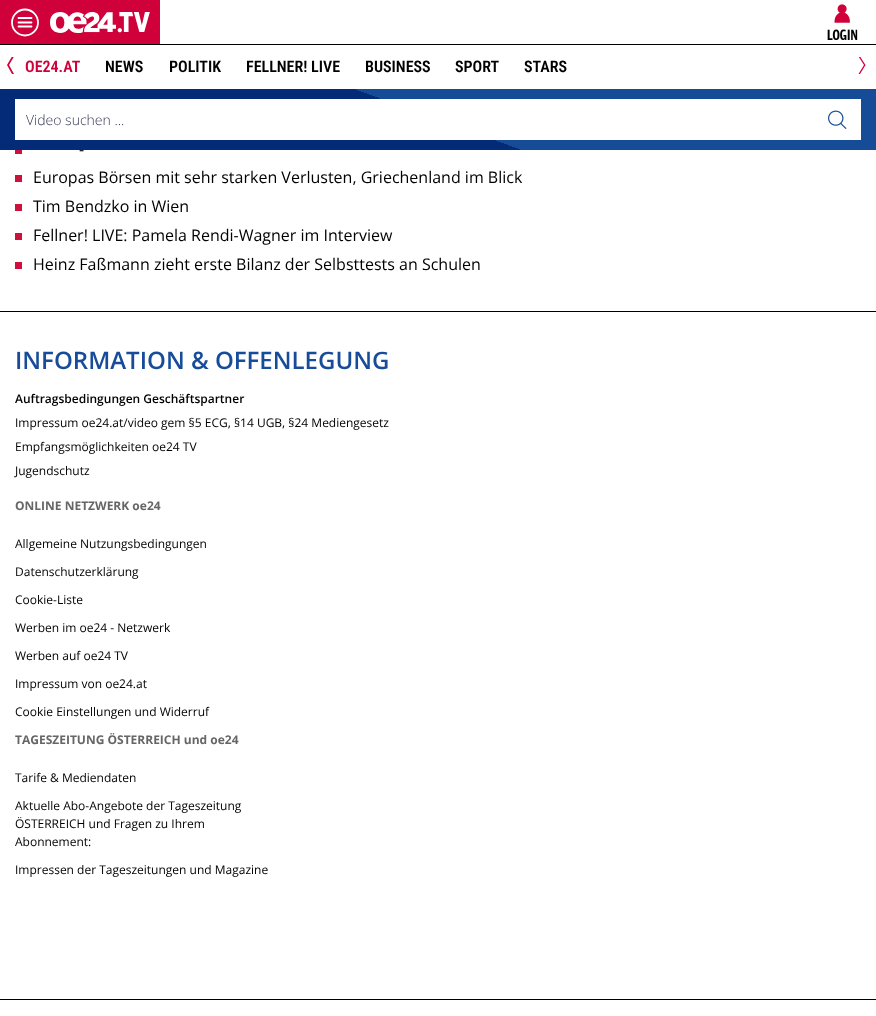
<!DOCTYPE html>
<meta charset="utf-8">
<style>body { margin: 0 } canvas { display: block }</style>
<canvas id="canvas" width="876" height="1016"></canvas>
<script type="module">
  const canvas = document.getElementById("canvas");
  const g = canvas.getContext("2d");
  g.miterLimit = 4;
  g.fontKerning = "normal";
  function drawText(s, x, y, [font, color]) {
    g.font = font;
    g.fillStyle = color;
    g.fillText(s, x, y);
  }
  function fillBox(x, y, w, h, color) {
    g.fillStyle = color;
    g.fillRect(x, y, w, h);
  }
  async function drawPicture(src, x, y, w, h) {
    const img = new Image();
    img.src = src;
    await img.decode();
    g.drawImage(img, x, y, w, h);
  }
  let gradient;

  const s1 = ["bold 14px 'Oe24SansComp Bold'", "#000000"];
  const s2 = ["600 16px Roboto Condensed", "#D0013A"];
  const s3 = ["600 16px Roboto Condensed", "#000000"];
  const s4 = ["300 14px Open Sans", "#343455"];
  const s5 = ["16px Open Sans", "#000000"];
  const s6 = ["600 24px Open Sans", "#164C99"];
  const s7 = ["600 12px Open Sans", "#000000"];
  const s8 = ["12px Open Sans", "#000000"];
  const s9 = ["bold 12px Open Sans", "#666666"];

  fillBox(0, 0, 876, 1016, "#FFFFFF");
  fillBox(0, 44, 876, 1, "#000000");
  fillBox(0, 0, 160, 44, "#D0013A");
  g.beginPath();
  g.arc(25, 22.5, 13, 0, Math.PI * 2);
  g.strokeStyle = "#FFFFFF";
  g.lineWidth = 1.8;
  g.stroke();
  g.beginPath();
  g.moveTo(18.5, 18);
  g.lineTo(31.5, 18);
  g.moveTo(18.5, 22.5);
  g.lineTo(31.5, 22.5);
  g.moveTo(18.5, 26.5);
  g.lineTo(31.5, 26.5);
  g.lineCap = "round";
  g.stroke();
  await drawPicture("pic1.png", 50, 12, 100, 21);
  await drawPicture("pic2.png", 834, 4, 16, 19);
  drawText("LOGIN", 827, 40, s1);
  g.save();
  g.beginPath();
  g.rect(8, 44, 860, 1);
  g.clip();
  g.fillStyle = "rgba(0, 0, 0, 0.1)";
  g.filter = "blur(3px)";
  g.beginPath();
  g.rect(0, 47, 876, 44);
  g.fill();
  g.filter = "none";
  g.restore();
  g.save();
  g.beginPath();
  g.rect(7, 57, 18, 18);
  g.clip();
  g.fillStyle = "#D0013A";
  g.beginPath();
  g.moveTo(7, 65);
  g.lineTo(12, 74);
  g.lineTo(14, 74);
  g.lineTo(9, 65);
  g.lineTo(14, 56.5);
  g.lineTo(12, 56.5);
  g.closePath();
  g.fill();
  g.restore();
  drawText("OE24.AT", 25, 72, s2);
  drawText("NEWS", 105, 72, s3);
  drawText("POLITIK", 169, 72, s3);
  drawText("FELLNER! LIVE", 246, 72, s3);
  drawText("BUSINESS", 365, 72, s3);
  drawText("SPORT", 455, 72, s3);
  drawText("STARS", 524, 72, s3);
  g.save();
  g.beginPath();
  g.rect(848, 57, 18, 18);
  g.clip();
  g.fillStyle = "#D0013A";
  g.beginPath();
  g.moveTo(865.5, 65);
  g.lineTo(860, 56.5);
  g.lineTo(858.5, 56.5);
  g.lineTo(864, 65);
  g.lineTo(858.5, 74);
  g.lineTo(860, 74);
  g.closePath();
  g.fill();
  g.restore();
  gradient = g.createLinearGradient(499, -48, 377, 287);
  gradient.addColorStop(0, "#154B97");
  gradient.addColorStop(0.5, "#154B97");
  gradient.addColorStop(0.5, "#032B77");
  gradient.addColorStop(1, "#032B77");
  g.fillStyle = gradient;
  g.fillRect(0, 89, 876, 61);
  fillBox(15, 99, 846, 41, "#FFFFFF");
  drawText("Video suchen ...", 26, 125, s4);
  await drawPicture("pic3.png", 828, 110, 19, 19);
  fillBox(15, 150, 7, 4, "#D0103C");
  drawText("-", 79, 155, s5);
  fillBox(15, 175, 7, 7, "#D0103C");
  drawText("Europas Börsen mit sehr starken Verlusten, Griechenland im Blick", 33, 183, s5);
  fillBox(15, 204, 7, 7, "#D0103C");
  drawText("Tim Bendzko in Wien", 33, 212, s5);
  fillBox(15, 233, 7, 7, "#D0103C");
  drawText("Fellner! LIVE: Pamela Rendi-Wagner im Interview", 33, 241, s5);
  fillBox(15, 262, 7, 7, "#D0103C");
  drawText("Heinz Faßmann zieht erste Bilanz der Selbsttests an Schulen", 33, 270, s5);
  fillBox(0, 311, 876, 1, "#000000");
  fillBox(0, 999, 876, 1, "#000000");
  drawText("INFORMATION & OFFENLEGUNG", 15, 369, s6);
  drawText("Auftragsbedingungen Geschäftspartner", 15, 403, s7);
  drawText("Impressum oe24.at/video gem §5 ECG, §14 UGB, §24 Mediengesetz", 15, 427, s8);
  drawText("Empfangsmöglichkeiten oe24 TV", 15, 451, s8);
  drawText("Jugendschutz", 15, 475, s8);
  drawText("ONLINE NETZWERK oe24", 15, 510, s9);
  drawText("Allgemeine Nutzungsbedingungen", 15, 548, s8);
  drawText("Datenschutzerklärung", 15, 576, s8);
  drawText("Cookie-Liste", 15, 604, s8);
  drawText("Werben im oe24 - Netzwerk", 15, 632, s8);
  drawText("Werben auf oe24 TV", 15, 660, s8);
  drawText("Impressum von oe24.at", 15, 688, s8);
  drawText("Cookie Einstellungen und Widerruf", 15, 716, s8);
  drawText("TAGESZEITUNG ÖSTERREICH und oe24", 15, 744, s9);
  drawText("Tarife & Mediendaten", 15, 782, s8);
  drawText("Aktuelle Abo-Angebote der Tageszeitung", 15, 810, s8);
  drawText("ÖSTERREICH und Fragen zu Ihrem", 15, 828, s8);
  drawText("Abonnement:", 15, 846, s8);
  drawText("Impressen der Tageszeitungen und Magazine", 15, 874, s8);
</script>
